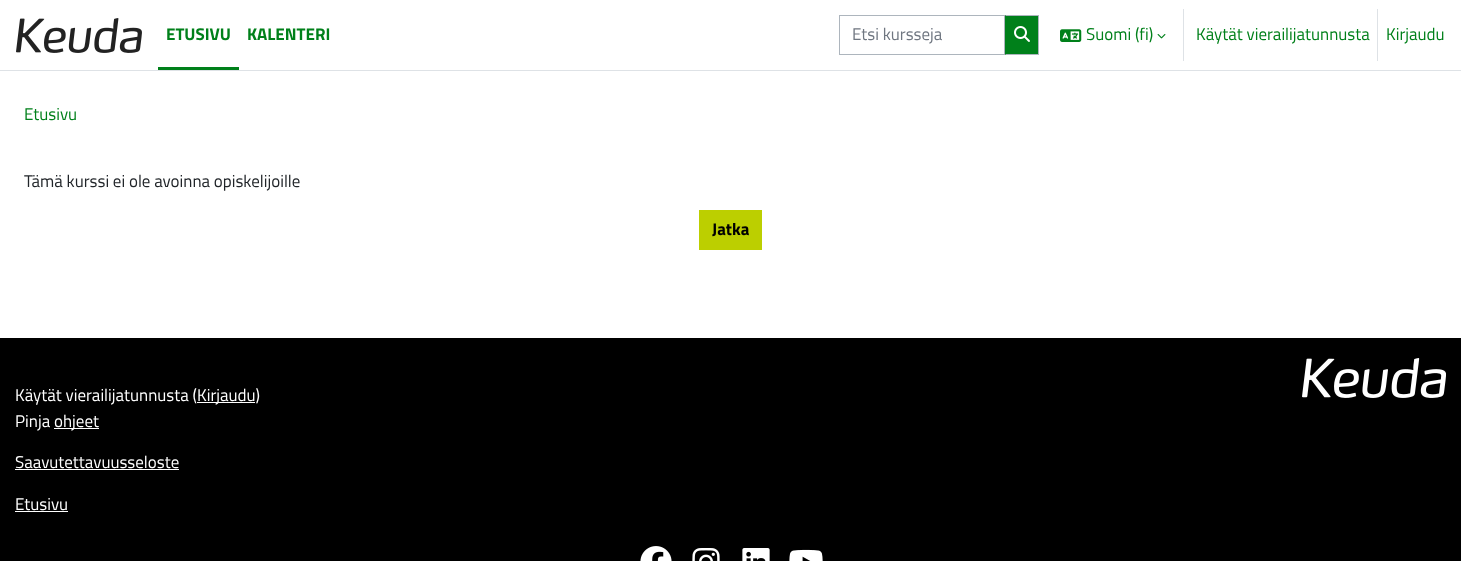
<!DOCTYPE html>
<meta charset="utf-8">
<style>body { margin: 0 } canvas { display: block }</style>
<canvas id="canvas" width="1461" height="561"></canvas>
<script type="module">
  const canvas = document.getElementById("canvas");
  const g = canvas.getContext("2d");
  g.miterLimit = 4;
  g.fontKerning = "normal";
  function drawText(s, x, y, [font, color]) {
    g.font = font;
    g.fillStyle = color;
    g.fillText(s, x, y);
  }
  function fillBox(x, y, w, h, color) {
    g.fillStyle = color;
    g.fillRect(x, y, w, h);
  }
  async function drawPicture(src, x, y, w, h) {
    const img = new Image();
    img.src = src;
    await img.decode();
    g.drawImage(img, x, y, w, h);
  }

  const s1 = ["bold 17px Titillium Web", "#00801A"];
  const s2 = ["17px Titillium Web", "#6F7680"];
  const s3 = ["17px Titillium Web", "#00801A"];
  const s4 = ["17px Titillium Web", "#212529"];
  const s5 = ["bold 17px Titillium Web", "#000000"];
  const s6 = ["17px Titillium Web", "#FFFFFF"];

  fillBox(0, 0, 1461, 561, "#FFFFFF");
  fillBox(0, 70, 1461, 1, "#DEE2E6");
  await drawPicture("pic1.png", 16, 18, 126, 35);
  fillBox(158, 67, 81, 3, "#00801A");
  drawText("ETUSIVU", 166, 40, s1);
  drawText("KALENTERI", 247, 40, s1);
  g.strokeStyle = "#ADB5BD";
  g.strokeRect(839.5, 15.5, 165, 39);
  drawText("Etsi kursseja", 852, 40, s2);
  fillBox(1005, 15, 33, 40, "#00801A");
  g.fillStyle = "#ADB5BD";
  g.beginPath();
  g.moveTo(1005, 15);
  g.lineTo(1039, 15);
  g.lineTo(1038, 16);
  g.lineTo(1006, 16);
  g.closePath();
  g.fill();
  fillBox(1038, 15, 1, 40, "#ADB5BD");
  g.beginPath();
  g.moveTo(1039, 55);
  g.lineTo(1005, 55);
  g.lineTo(1006, 54);
  g.lineTo(1038, 54);
  g.closePath();
  g.fill();
  await drawPicture("pic2.png", 1014, 26, 16, 16);
  await drawPicture("pic3.png", 1060, 29, 22, 13);
  drawText("Suomi (fi)", 1086, 40, s3);
  await drawPicture("pic4.png", 1157, 34, 9, 5);
  fillBox(1183, 9, 1, 52, "#DEE2E6");
  drawText("Käytät vierailijatunnusta", 1196, 40, s3);
  fillBox(1377, 9, 1, 52, "#DEE2E6");
  drawText("Kirjaudu", 1386, 40, s3);
  drawText("Etusivu", 24, 120, s3);
  drawText("Tämä kurssi ei ole avoinna opiskelijoille", 24, 187, s4);
  fillBox(699, 210, 63, 40, "#BCCF00");
  drawText("Jatka", 712, 235, s5);
  fillBox(0, 338, 1461, 223, "#000000");
  await drawPicture("pic5.png", 1302, 358, 144, 40);
  drawText("Käytät vierailijatunnusta (", 15, 401, s6);
  fillBox(197, 402, 58, 1, "#FFFFFF");
  drawText("Kirjaudu)", 197, 401, s6);
  drawText("Pinja", 15, 427, s6);
  fillBox(54, 428, 45, 1, "#FFFFFF");
  drawText("ohjeet", 54, 427, s6);
  drawText("Saavutettavuusseloste", 15, 468, s6);
  fillBox(15, 469, 164, 1, "#FFFFFF");
  drawText("Etusivu", 15, 510, s6);
  fillBox(15, 511, 53, 1, "#FFFFFF");
  await drawPicture("pic6.png", 640, 546, 32, 15);
  await drawPicture("pic7.png", 692, 548, 28, 13);
  await drawPicture("pic8.png", 742, 548, 28, 13);
  await drawPicture("pic9.png", 789, 549, 34, 12);
</script>
